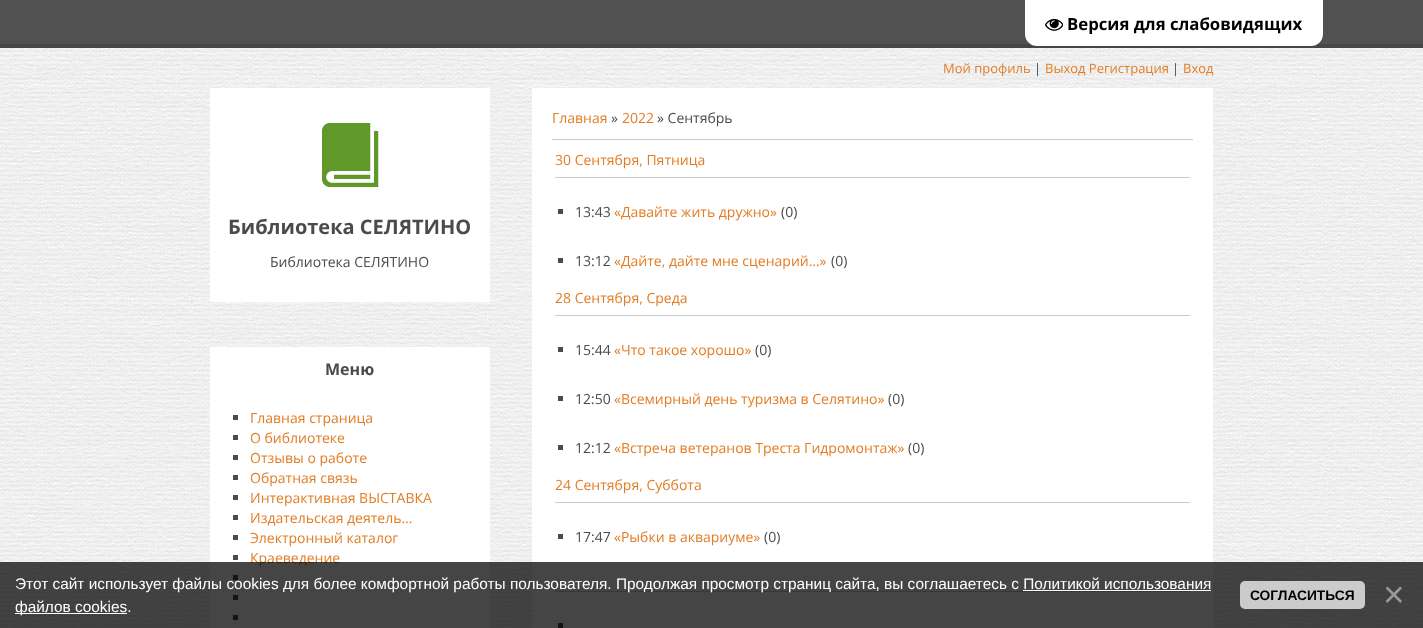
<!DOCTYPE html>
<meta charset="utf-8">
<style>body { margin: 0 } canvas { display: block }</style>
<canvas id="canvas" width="1423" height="628"></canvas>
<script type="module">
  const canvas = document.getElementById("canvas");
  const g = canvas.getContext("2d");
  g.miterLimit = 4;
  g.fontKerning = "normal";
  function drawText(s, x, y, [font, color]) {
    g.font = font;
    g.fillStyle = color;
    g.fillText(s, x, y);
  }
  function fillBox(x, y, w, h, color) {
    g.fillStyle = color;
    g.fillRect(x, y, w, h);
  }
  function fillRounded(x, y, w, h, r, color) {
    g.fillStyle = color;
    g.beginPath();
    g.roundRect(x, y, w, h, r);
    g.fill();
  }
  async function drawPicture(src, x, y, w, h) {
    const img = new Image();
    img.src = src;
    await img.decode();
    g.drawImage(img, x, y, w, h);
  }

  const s1 = ["bold 16.75px Open Sans", "#000000"];
  const s2 = ["13px Open Sans", "#E27D25"];
  const s3 = ["13px Open Sans", "#4B4B4B"];
  const s4 = ["bold 20px Open Sans", "#4B4B4B"];
  const s5 = ["14px Open Sans", "#4B4B4B"];
  const s6 = ["14px Open Sans", "#E27D25"];
  const s7 = ["bold 16px Open Sans", "#4B4B4B"];
  const s8 = ["15.4px Liberation Sans", "#FFFFFF"];
  const s9 = ["bold 13.75px Liberation Sans", "#000000"];
  const s10 = ["37px Liberation Sans", "#999999"];

  fillBox(0, 0, 1423, 628, "#FFFFFF");
  await drawPicture("pic1.png", 0, 48, 1423, 580);
  fillBox(0, 0, 1423, 44, "#515151");
  fillBox(0, 44, 1423, 4, "#464646");
  g.fillStyle = "#FFFFFF";
  g.beginPath();
  g.roundRect(1025, 0, 298, 46, [0, 0, 12, 12]);
  g.fill();
  await drawPicture("pic2.png", 1045, 18, 18, 13);
  drawText("Версия для слабовидящих", 1067, 30, s1);
  drawText("Мой профиль", 943, 73, s2);
  drawText("|", 1034, 73, s3);
  drawText("Выход Регистрация", 1045, 73, s2);
  drawText("|", 1172, 73, s3);
  drawText("Вход", 1183, 73, s2);
  fillBox(210, 88, 280, 214, "#FFFFFF");
  await drawPicture("pic3.png", 322, 123, 57, 64);
  drawText("Библиотека СЕЛЯТИНО", 228, 234, s4);
  drawText("Библиотека СЕЛЯТИНО", 270, 267, s5);
  fillBox(532, 88, 681, 540, "#FFFFFF");
  drawText("Главная", 552, 123, s6);
  drawText("»", 611, 123, s5);
  drawText("2022", 622, 123, s6);
  drawText("» Сентябрь", 657, 123, s5);
  fillBox(552, 139, 641, 1, "#CCCCCC");
  drawText("30 Сентября, Пятница", 555, 165, s6);
  fillBox(555, 177, 635, 1, "#CCCCCC");
  fillBox(558, 209, 5, 5, "#4B4B4B");
  drawText("13:43", 575, 217, s5);
  drawText("«Давайте жить дружно»", 614, 217, s6);
  drawText("(0)", 781, 217, s5);
  fillBox(558, 258, 5, 5, "#4B4B4B");
  drawText("13:12", 575, 266, s5);
  drawText("«Дайте, дайте мне сценарий…»", 614, 266, s6);
  drawText("(0)", 831, 266, s5);
  drawText("28 Сентября, Среда", 555, 303, s6);
  fillBox(555, 315, 635, 1, "#CCCCCC");
  fillBox(558, 347, 5, 5, "#4B4B4B");
  drawText("15:44", 575, 355, s5);
  drawText("«Что такое хорошо»", 614, 355, s6);
  drawText("(0)", 755, 355, s5);
  fillBox(558, 396, 5, 5, "#4B4B4B");
  drawText("12:50", 575, 404, s5);
  drawText("«Всемирный день туризма в Селятино»", 614, 404, s6);
  drawText("(0)", 888, 404, s5);
  fillBox(558, 445, 5, 5, "#4B4B4B");
  drawText("12:12", 575, 453, s5);
  drawText("«Встреча ветеранов Треста Гидромонтаж»", 614, 453, s6);
  drawText("(0)", 908, 453, s5);
  drawText("24 Сентября, Суббота", 555, 490, s6);
  fillBox(555, 502, 635, 1, "#CCCCCC");
  fillBox(558, 534, 5, 5, "#4B4B4B");
  drawText("17:47", 575, 542, s5);
  drawText("«Рыбки в аквариуме»", 614, 542, s6);
  drawText("(0)", 764, 542, s5);
  fillBox(555, 591, 635, 1, "#CCCCCC");
  fillBox(558, 623, 5, 5, "#4B4B4B");
  fillBox(210, 347, 280, 281, "#FFFFFF");
  drawText("Меню", 325, 375, s7);
  fillBox(233, 415, 5, 5, "#4B4B4B");
  drawText("Главная страница", 250, 423, s6);
  fillBox(233, 435, 5, 5, "#4B4B4B");
  drawText("О библиотеке", 250, 443, s6);
  fillBox(233, 455, 5, 5, "#4B4B4B");
  drawText("Отзывы о работе", 250, 463, s6);
  fillBox(233, 475, 5, 5, "#4B4B4B");
  drawText("Обратная связь", 250, 483, s6);
  fillBox(233, 495, 5, 5, "#4B4B4B");
  drawText("Интерактивная ВЫСТАВКА", 250, 503, s6);
  fillBox(233, 515, 5, 5, "#4B4B4B");
  drawText("Издательская деятель...", 250, 523, s6);
  fillBox(233, 535, 5, 5, "#4B4B4B");
  drawText("Электронный каталог", 250, 543, s6);
  fillBox(233, 555, 5, 5, "#4B4B4B");
  drawText("Краеведение", 250, 563, s6);
  fillBox(233, 575, 5, 5, "#4B4B4B");
  fillBox(233, 595, 5, 5, "#4B4B4B");
  fillBox(233, 615, 5, 5, "#4B4B4B");
  fillBox(0, 562, 1423, 66, "rgba(0, 0, 0, 0.73)");
  drawText("Этот сайт использует файлы cookies для более комфортной работы пользователя. Продолжая просмотр страниц сайта, вы соглашаетесь с Политикой использования", 15, 589, s8);
  fillBox(15, 613, 112, 1, "#FFFFFF");
  drawText("файлов cookies.", 15, 612, s8);
  fillBox(1023, 590, 188, 1, "#FFFFFF");
  fillRounded(1240, 581, 125, 28, 5, "rgba(255, 255, 255, 0.73)");
  drawText("СОГЛАСИТЬСЯ", 1250, 600, s9);
  drawText("×", 1383, 607, s10);
</script>
